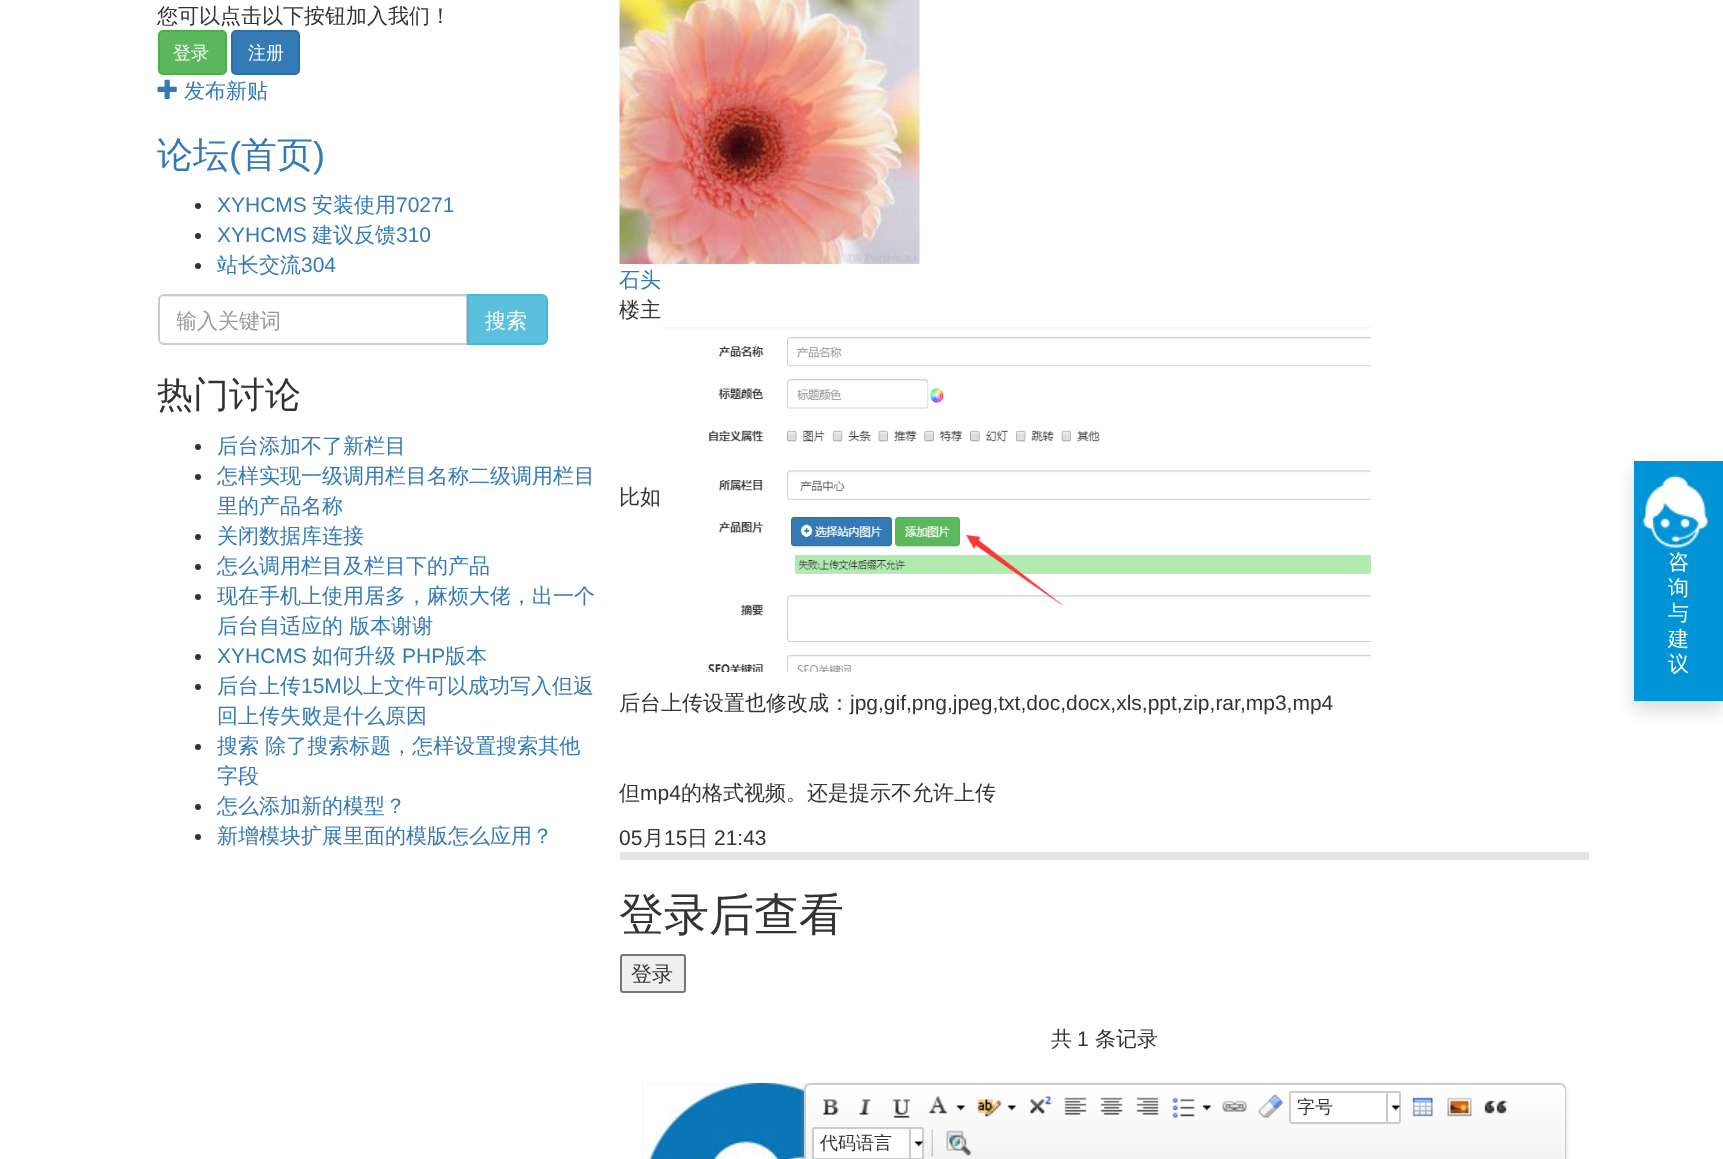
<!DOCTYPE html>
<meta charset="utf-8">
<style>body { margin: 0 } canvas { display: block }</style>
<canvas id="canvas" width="1723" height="1159"></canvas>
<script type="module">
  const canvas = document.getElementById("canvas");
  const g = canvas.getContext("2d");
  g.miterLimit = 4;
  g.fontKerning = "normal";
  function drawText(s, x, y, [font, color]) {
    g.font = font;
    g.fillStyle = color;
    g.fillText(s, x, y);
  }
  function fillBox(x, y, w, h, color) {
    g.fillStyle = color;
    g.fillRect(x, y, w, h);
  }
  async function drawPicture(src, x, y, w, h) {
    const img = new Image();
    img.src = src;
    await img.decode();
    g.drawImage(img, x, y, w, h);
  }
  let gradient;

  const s1 = ["500 21px WenQuanYi Zen Hei", "#333333"];
  const s2 = ["500 18px WenQuanYi Zen Hei", "#FFFFFF"];
  const s3 = ["500 21px WenQuanYi Zen Hei", "#337AB7"];
  const s4 = ["500 36px WenQuanYi Zen Hei", "#337AB7"];
  const s5 = ["36px Liberation Sans", "#337AB7"];
  const s6 = ["21px Liberation Sans", "#337AB7"];
  const s7 = ["500 21px WenQuanYi Zen Hei", "#999999"];
  const s8 = ["500 21px WenQuanYi Zen Hei", "#FFFFFF"];
  const s9 = ["500 36px WenQuanYi Zen Hei", "#333333"];
  const s10 = ["21px Liberation Sans", "#333333"];
  const s11 = ["500 45px WenQuanYi Zen Hei", "#333333"];
  const s12 = ["500 18px WenQuanYi Zen Hei", "#333333"];

  fillBox(0, 0, 1723, 1159, "#FFFFFF");
  drawText("您可以点击以下按钮加入我们！", 157, 23, s1);
  g.fillStyle = "#5CB85C";
  g.beginPath();
  g.roundRect(159, 31, 67, 43, 4);
  g.fill();
  g.strokeStyle = "#4CAE4C";
  g.lineWidth = 2;
  g.stroke();
  drawText("登录", 173, 59, s2);
  g.fillStyle = "#337AB7";
  g.beginPath();
  g.roundRect(232, 31, 67, 43, 4);
  g.fill();
  g.strokeStyle = "#2E6DA4";
  g.stroke();
  drawText("注册", 248, 59, s2);
  await drawPicture("pic1.png", 157, 79, 20, 20);
  drawText("发布新贴", 184, 98, s3);
  drawText("论坛", 157, 167, s4);
  drawText("(", 229, 167, s5);
  drawText("首页", 241, 167, s4);
  drawText(")", 313, 167, s5);
  g.fillStyle = "#333333";
  g.beginPath();
  g.arc(198, 206, 3, 0, Math.PI * 2);
  g.fill();
  drawText("XYHCMS", 217, 212, s6);
  drawText("安装使用", 312, 212, s3);
  drawText("70271", 396, 212, s6);
  g.fillStyle = "#333333";
  g.beginPath();
  g.arc(198, 236, 3, 0, Math.PI * 2);
  g.fill();
  drawText("XYHCMS", 217, 242, s6);
  drawText("建议反馈", 312, 242, s3);
  drawText("310", 396, 242, s6);
  g.fillStyle = "#333333";
  g.beginPath();
  g.arc(198, 266, 3, 0, Math.PI * 2);
  g.fill();
  drawText("站长交流", 217, 272, s3);
  drawText("304", 301, 272, s6);
  g.fillStyle = "#ECECEC";
  g.beginPath();
  g.moveTo(164, 297);
  g.lineTo(466, 297);
  g.lineTo(466, 344);
  g.lineTo(467, 344);
  g.lineTo(467, 296);
  g.lineTo(164, 296);
  g.bezierCurveTo(161, 296, 159, 299, 159, 302);
  g.bezierCurveTo(159, 299, 161, 297, 164, 297);
  g.closePath();
  g.fill();
  g.beginPath();
  g.roundRect(159, 295, 308, 49, [5, 0, 0, 5]);
  g.strokeStyle = "#CCCCCC";
  g.stroke();
  g.save();
  g.beginPath();
  g.rect(177, 308, 272, 27);
  g.clip();
  drawText("输入关键词", 176, 328, s7);
  g.restore();
  g.fillStyle = "#5BC0DE";
  g.beginPath();
  g.roundRect(468, 295, 79, 49, [0, 5, 5, 0]);
  g.fill();
  g.strokeStyle = "#46B8DA";
  g.stroke();
  drawText("搜索", 485, 328, s8);
  drawText("热门讨论", 157, 407, s9);
  g.beginPath();
  g.arc(198, 447, 3, 0, Math.PI * 2);
  g.fill();
  drawText("后台添加不了新栏目", 217, 453, s3);
  g.fillStyle = "#333333";
  g.beginPath();
  g.arc(198, 477, 3, 0, Math.PI * 2);
  g.fill();
  drawText("怎样实现一级调用栏目名称二级调用栏目", 217, 483, s3);
  drawText("里的产品名称", 217, 513, s3);
  g.fillStyle = "#333333";
  g.beginPath();
  g.arc(198, 537, 3, 0, Math.PI * 2);
  g.fill();
  drawText("关闭数据库连接", 217, 543, s3);
  g.fillStyle = "#333333";
  g.beginPath();
  g.arc(198, 567, 3, 0, Math.PI * 2);
  g.fill();
  drawText("怎么调用栏目及栏目下的产品", 217, 573, s3);
  g.fillStyle = "#333333";
  g.beginPath();
  g.arc(198, 597, 3, 0, Math.PI * 2);
  g.fill();
  drawText("现在手机上使用居多，麻烦大佬，出一个", 217, 603, s3);
  drawText("后台自适应的 版本谢谢", 217, 633, s3);
  g.fillStyle = "#333333";
  g.beginPath();
  g.arc(198, 657, 3, 0, Math.PI * 2);
  g.fill();
  drawText("XYHCMS", 217, 663, s6);
  drawText("如何升级", 312, 663, s3);
  drawText("PHP", 402, 663, s6);
  drawText("版本", 445, 663, s3);
  g.fillStyle = "#333333";
  g.beginPath();
  g.arc(198, 687, 3, 0, Math.PI * 2);
  g.fill();
  drawText("后台上传", 217, 693, s3);
  drawText("15M", 301, 693, s6);
  drawText("以上文件可以成功写入但返", 342, 693, s3);
  drawText("回上传失败是什么原因", 217, 723, s3);
  g.fillStyle = "#333333";
  g.beginPath();
  g.arc(198, 747, 3, 0, Math.PI * 2);
  g.fill();
  drawText("搜索 除了搜索标题，怎样设置搜索其他", 217, 753, s3);
  drawText("字段", 217, 783, s3);
  g.fillStyle = "#333333";
  g.beginPath();
  g.arc(198, 807, 3, 0, Math.PI * 2);
  g.fill();
  drawText("怎么添加新的模型？", 217, 813, s3);
  g.fillStyle = "#333333";
  g.beginPath();
  g.arc(198, 837, 3, 0, Math.PI * 2);
  g.fill();
  drawText("新增模块扩展里面的模版怎么应用？", 217, 843, s3);
  fillBox(620, 852, 969, 8, "#E6E6E6");
  await drawPicture("pic2.png", 619, 0, 301, 264);
  drawText("石头", 619, 287, s3);
  drawText("楼主", 619, 317, s1);
  drawText("比如", 619, 504, s1);
  await drawPicture("pic3.png", 661, 327, 710, 345);
  drawText("后台上传设置也修改成：", 619, 710, s1);
  drawText("jpg,gif,png,jpeg,txt,doc,docx,xls,ppt,zip,rar,mp3,mp4", 850, 710, s10);
  drawText("但", 619, 800, s1);
  drawText("mp4", 640, 800, s10);
  drawText("的格式视频。还是提示不允许上传", 681, 800, s1);
  drawText("05", 619, 845, s10);
  drawText("月", 643, 845, s1);
  drawText("15", 664, 845, s10);
  drawText("日", 687, 845, s1);
  drawText("21:43", 714, 845, s10);
  drawText("登录后查看", 619, 930, s11);
  g.fillStyle = "#EFEFEF";
  g.beginPath();
  g.roundRect(621, 955, 64, 37, 2);
  g.fill();
  g.strokeStyle = "#767676";
  g.stroke();
  drawText("登录", 631, 981, s1);
  drawText("共", 1051, 1046, s1);
  drawText("1", 1077, 1046, s10);
  drawText("条记录", 1095, 1046, s1);
  await drawPicture("pic4.png", 642, 1083, 168, 76);
  g.fillStyle = "#FFFFFF";
  g.beginPath();
  g.roundRect(805, 1084, 760, 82, 5);
  g.fill();
  g.strokeStyle = "#D4D4D4";
  g.stroke();
  g.fillStyle = "rgba(204, 204, 204, 0.6)";
  g.filter = "blur(3px)";
  g.beginPath();
  g.roundRect(806, 1086, 759, 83, 3);
  g.fill();
  g.filter = "none";
  g.fillStyle = "rgba(0, 0, 0, 0.07)";
  g.filter = "blur(3px)";
  g.beginPath();
  g.roundRect(806, 1086, 759, 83, 6);
  g.fill();
  g.filter = "none";
  gradient = g.createLinearGradient(1185, 1085, 1185, 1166);
  gradient.addColorStop(0, "#FFFFFF");
  gradient.addColorStop(1, "#F2F2F2");
  g.fillStyle = gradient;
  g.beginPath();
  g.moveTo(812, 1085);
  g.lineTo(1559, 1085);
  g.bezierCurveTo(1562.5, 1085, 1565, 1087.5, 1565, 1091);
  g.lineTo(1565, 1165);
  g.lineTo(806, 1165);
  g.lineTo(806, 1091);
  g.bezierCurveTo(806, 1087.5, 808.5, 1085, 812, 1085);
  g.closePath();
  g.fill();
  await drawPicture("pic5.png", 823, 1099, 16, 16);
  await drawPicture("pic6.png", 859, 1099, 12, 16);
  await drawPicture("pic7.png", 892, 1099, 19, 19);
  await drawPicture("pic8.png", 928, 1096, 20, 18);
  await drawPicture("pic9.png", 956, 1105, 9, 6);
  await drawPicture("pic10.png", 977, 1099, 25, 18);
  await drawPicture("pic9.png", 1007, 1105, 9, 6);
  await drawPicture("pic11.png", 1030, 1096, 22, 18);
  await drawPicture("pic12.png", 1064, 1097, 23, 18);
  await drawPicture("pic13.png", 1100, 1097, 23, 18);
  await drawPicture("pic14.png", 1136, 1097, 23, 18);
  await drawPicture("pic15.png", 1172, 1097, 23, 21);
  await drawPicture("pic16.png", 1202, 1105, 9, 6);
  await drawPicture("pic17.png", 1222, 1100, 25, 12);
  await drawPicture("pic18.png", 1258, 1094, 25, 24);
  g.fillStyle = "#FFFFFF";
  g.beginPath();
  g.roundRect(1290, 1092, 110, 31, 2);
  g.fill();
  g.strokeStyle = "#CCCCCC";
  g.stroke();
  drawText("字号", 1297, 1113, s12);
  await drawPicture("pic19.png", 1391, 1105, 9, 6);
  fillBox(1386, 1092, 2, 30, "#CCCCCC");
  await drawPicture("pic20.png", 1412, 1097, 21, 20);
  await drawPicture("pic21.png", 1447, 1097, 25, 20);
  await drawPicture("pic22.png", 1484, 1100, 24, 14);
  g.fillStyle = "#FFFFFF";
  g.beginPath();
  g.roundRect(813, 1128, 110, 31, 2);
  g.fill();
  g.stroke();
  drawText("代码语言", 820, 1149, s12);
  await drawPicture("pic19.png", 914, 1141, 9, 6);
  fillBox(909, 1128, 2, 30, "#CCCCCC");
  await drawPicture("pic23.png", 931, 1129, 2, 28);
  await drawPicture("pic24.png", 946, 1130, 25, 26);
  g.fillStyle = "rgba(0, 0, 0, 0.15)";
  g.filter = "blur(9px)";
  g.beginPath();
  g.rect(1634, 470, 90, 240);
  g.fill();
  g.filter = "none";
  fillBox(1634, 461, 89, 240, "#0094D7");
  await drawPicture("pic25.png", 1642, 475, 67, 73);
  drawText("咨", 1668, 569, s8);
  drawText("询", 1668, 595, s8);
  drawText("与", 1668, 620, s8);
  drawText("建", 1668, 646, s8);
  drawText("议", 1668, 671, s8);
</script>
